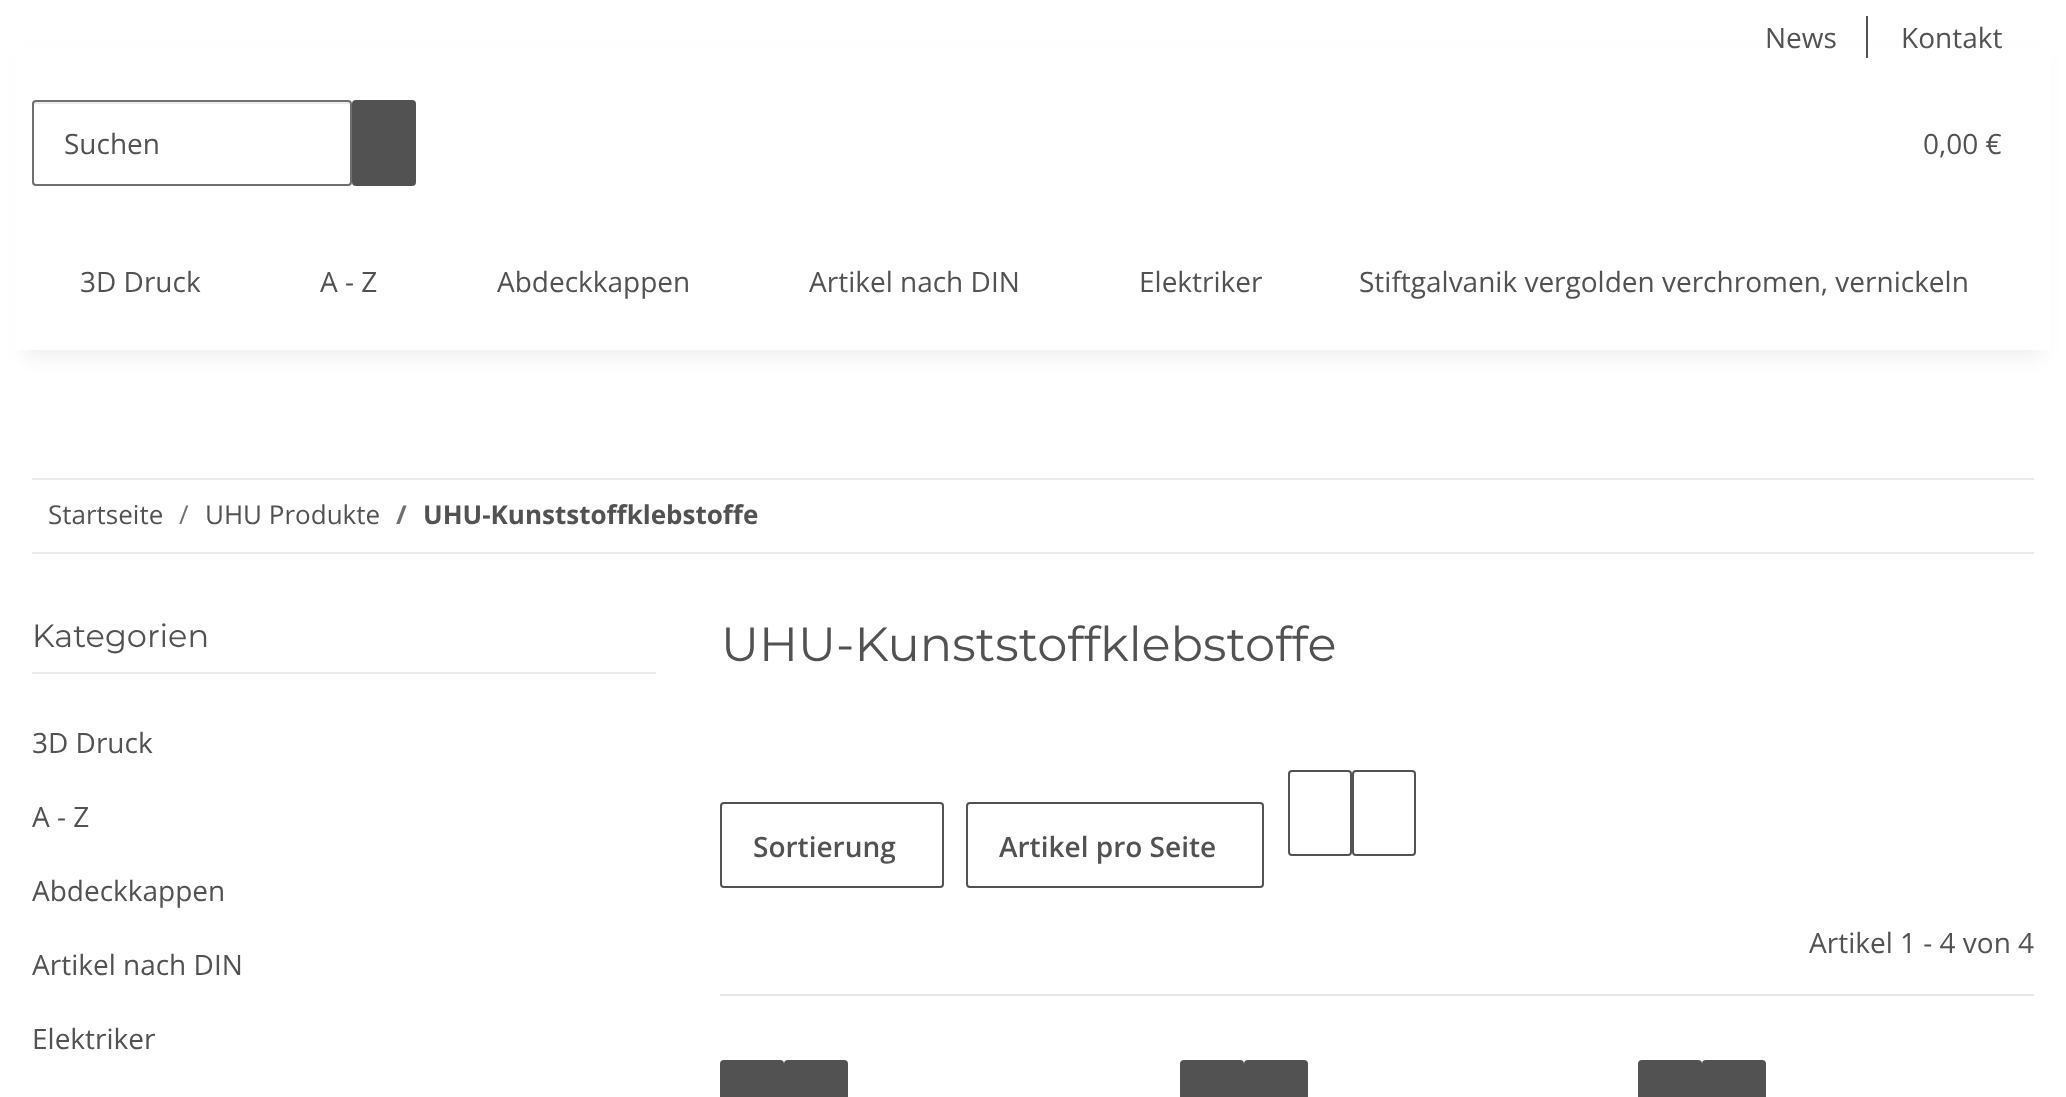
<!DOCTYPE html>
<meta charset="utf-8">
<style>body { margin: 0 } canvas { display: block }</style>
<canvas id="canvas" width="2066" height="1097"></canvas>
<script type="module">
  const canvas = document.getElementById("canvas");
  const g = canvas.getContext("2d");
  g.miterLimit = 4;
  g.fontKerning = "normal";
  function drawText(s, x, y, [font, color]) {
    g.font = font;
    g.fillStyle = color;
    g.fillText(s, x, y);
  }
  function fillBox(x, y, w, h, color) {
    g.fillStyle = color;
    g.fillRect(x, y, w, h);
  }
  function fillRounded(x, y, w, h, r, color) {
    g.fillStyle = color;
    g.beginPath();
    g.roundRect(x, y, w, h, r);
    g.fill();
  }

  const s1 = ["28px Open Sans", "#525252"];
  const s2 = ["26px Open Sans", "#525252"];
  const s3 = ["26px Open Sans", "#707070"];
  const s4 = ["bold 26px Open Sans", "#707070"];
  const s5 = ["bold 26px Open Sans", "#525252"];
  const s6 = ["32px Montserrat", "#525252"];
  const s7 = ["48px Montserrat", "#525252"];
  const s8 = ["600 28px Open Sans", "#525252"];

  fillBox(0, 0, 2066, 1097, "#FFFFFF");
  g.fillStyle = "rgba(0, 0, 0, 0.06)";
  g.filter = "blur(9px)";
  g.beginPath();
  g.rect(24, 56, 2018, 302);
  g.fill();
  g.filter = "none";
  fillBox(15, 47, 2036, 303, "#FFFFFF");
  drawText("News", 1765, 48, s1);
  fillBox(1866, 16, 2, 42, "#525252");
  drawText("Kontakt", 1901, 48, s1);
  g.fillStyle = "#ECECEC";
  g.beginPath();
  g.moveTo(36, 104);
  g.lineTo(348, 104);
  g.bezierCurveTo(349, 104, 350, 105, 350, 106);
  g.lineTo(350, 104);
  g.bezierCurveTo(350, 103, 349, 102, 348, 102);
  g.lineTo(36, 102);
  g.bezierCurveTo(35, 102, 34, 103, 34, 104);
  g.lineTo(34, 106);
  g.bezierCurveTo(34, 105, 35, 104, 36, 104);
  g.closePath();
  g.fill();
  g.beginPath();
  g.roundRect(33, 101, 318, 84, 3);
  g.strokeStyle = "#707070";
  g.lineWidth = 2;
  g.stroke();
  drawText("Suchen", 64, 154, s1);
  fillRounded(352, 100, 64, 86, 4, "#525252");
  drawText("0,00 €", 1923, 154, s1);
  drawText("3D Druck", 80, 292, s1);
  drawText("A - Z", 320, 292, s1);
  drawText("Abdeckkappen", 497, 292, s1);
  drawText("Artikel nach DIN", 809, 292, s1);
  drawText("Elektriker", 1139, 292, s1);
  drawText("Stiftgalvanik vergolden verchromen, vernickeln", 1359, 292, s1);
  fillBox(32, 478, 2002, 2, "#EBEBEB");
  fillBox(32, 552, 2002, 2, "#EBEBEB");
  drawText("Startseite", 48, 524, s2);
  drawText("/", 179, 524, s3);
  drawText("UHU Produkte", 205, 524, s2);
  drawText("/", 396, 524, s4);
  drawText("UHU-Kunststoffklebstoffe", 423, 524, s5);
  fillBox(32, 672, 624, 2, "#EBEBEB");
  drawText("Kategorien", 32, 647, s6);
  drawText("3D Druck", 32, 753, s1);
  drawText("A - Z", 32, 827, s1);
  drawText("Abdeckkappen", 32, 901, s1);
  drawText("Artikel nach DIN", 32, 975, s1);
  drawText("Elektriker", 32, 1049, s1);
  drawText("UHU-Kunststoffklebstoffe", 721, 661, s7);
  g.beginPath();
  g.roundRect(721, 803, 222, 84, 3);
  g.strokeStyle = "#525252";
  g.stroke();
  drawText("Sortierung", 753, 857, s8);
  g.beginPath();
  g.roundRect(967, 803, 296, 84, 3);
  g.stroke();
  drawText("Artikel pro Seite", 999, 857, s8);
  g.beginPath();
  g.roundRect(1289, 771, 62, 84, 3);
  g.stroke();
  g.beginPath();
  g.roundRect(1353, 771, 62, 84, 3);
  g.stroke();
  drawText("Artikel 1 - 4 von 4", 1809, 953, s1);
  fillBox(720, 994, 1314, 2, "#E6E6E6");
  fillRounded(720, 1060, 64, 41, 4, "#525252");
  fillRounded(784, 1060, 64, 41, 4, "#525252");
  fillRounded(1180, 1060, 64, 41, 4, "#525252");
  fillRounded(1244, 1060, 64, 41, 4, "#525252");
  fillRounded(1638, 1060, 64, 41, 4, "#525252");
  fillRounded(1702, 1060, 64, 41, 4, "#525252");
</script>
